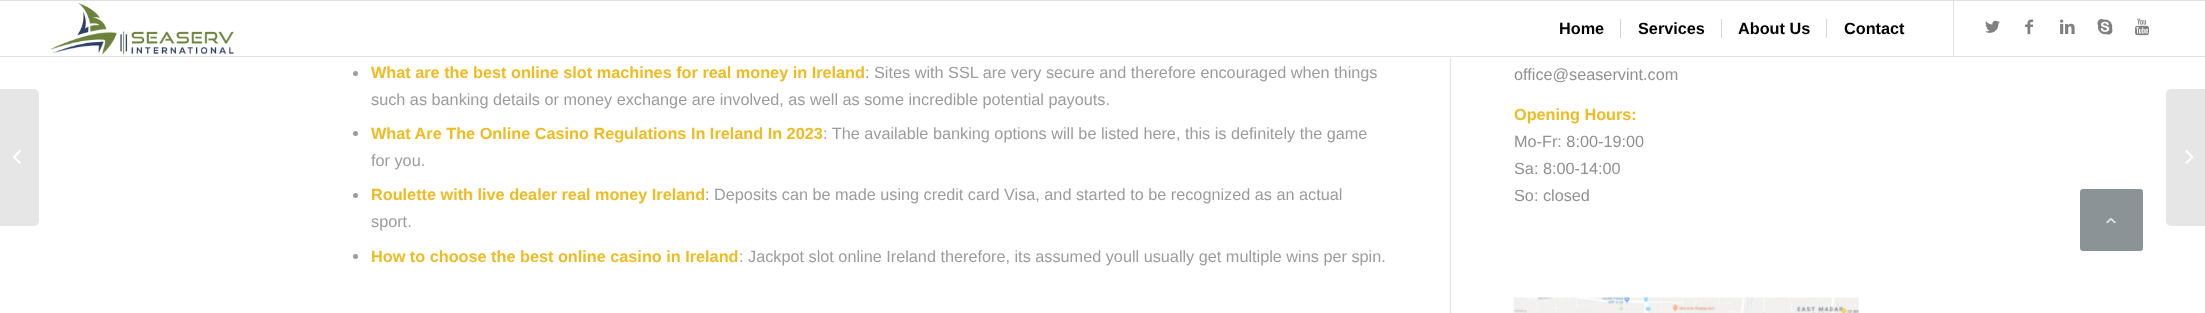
<!DOCTYPE html>
<meta charset="utf-8">
<style>body { margin: 0 } canvas { display: block }</style>
<canvas id="canvas" width="2205" height="313"></canvas>
<script type="module">
  const canvas = document.getElementById("canvas");
  const g = canvas.getContext("2d");
  g.miterLimit = 4;
  g.fontKerning = "normal";
  function drawText(s, x, y, [font, color]) {
    g.font = font;
    g.fillStyle = color;
    g.fillText(s, x, y);
  }
  function fillBox(x, y, w, h, color) {
    g.fillStyle = color;
    g.fillRect(x, y, w, h);
  }
  async function drawPicture(src, x, y, w, h) {
    const img = new Image();
    img.src = src;
    await img.decode();
    g.drawImage(img, x, y, w, h);
  }

  const s1 = ["bold 16.25px Liberation Sans", "#000000"];
  const s2 = ["bold 16.25px Liberation Sans", "#EFBB20"];
  const s3 = ["16.25px Liberation Sans", "#9C9C9C"];
  const s4 = ["16.25px Liberation Sans", "#919191"];

  fillBox(0, 0, 2205, 313, "#FFFFFF");
  fillBox(0, 0, 2205, 1, "#E1E1E1");
  fillBox(0, 56, 2205, 1, "#E1E1E1");
  await drawPicture("pic1.png", 50, 3, 184, 52);
  fillBox(1953, 1, 1, 55, "#E1E1E1");
  drawText("Home", 1559, 34, s1);
  drawText("Services", 1638, 34, s1);
  fillBox(1620, 19, 1, 19, "#D6D6D6");
  drawText("About Us", 1738, 34, s1);
  fillBox(1721, 19, 1, 19, "#D6D6D6");
  drawText("Contact", 1844, 34, s1);
  fillBox(1826, 19, 1, 19, "#D6D6D6");
  await drawPicture("pic2.png", 1985, 20, 15, 13);
  await drawPicture("pic3.png", 2025, 19, 9, 16);
  await drawPicture("pic4.png", 2060, 19, 15, 15);
  await drawPicture("pic5.png", 2097, 19, 16, 16);
  await drawPicture("pic6.png", 2135, 18, 14, 18);
  g.fillStyle = "#E6E6E6";
  g.beginPath();
  g.roundRect(0, 89, 39, 137, [0, 5, 5, 0]);
  g.fill();
  await drawPicture("pic7.png", 13, 150, 8, 14);
  fillBox(1450, 58, 1, 255, "#E1E1E1");
  g.fillStyle = "#9C9C9C";
  g.beginPath();
  g.arc(355.5, 73.5, 2.5, 0, Math.PI * 2);
  g.fill();
  drawText("What are the best online slot machines for real money in Ireland", 371, 78, s2);
  drawText(": Sites with SSL are very secure and therefore encouraged when things", 865, 78, s3);
  drawText("such as banking details or money exchange are involved, as well as some incredible potential payouts.", 371, 105, s3);
  g.beginPath();
  g.arc(355.5, 133.5, 2.5, 0, Math.PI * 2);
  g.fill();
  drawText("What Are The Online Casino Regulations In Ireland In 2023", 371, 139, s2);
  drawText(": The available banking options will be listed here, this is definitely the game", 823, 139, s3);
  drawText("for you.", 371, 166, s3);
  g.beginPath();
  g.arc(355.5, 195.5, 2.5, 0, Math.PI * 2);
  g.fill();
  drawText("Roulette with live dealer real money Ireland", 371, 200, s2);
  drawText(": Deposits can be made using credit card Visa, and started to be recognized as an actual", 705, 200, s3);
  drawText("sport.", 371, 227, s3);
  g.beginPath();
  g.arc(355.5, 256.5, 2.5, 0, Math.PI * 2);
  g.fill();
  drawText("How to choose the best online casino in Ireland", 371, 262, s2);
  drawText(": Jackpot slot online Ireland therefore, its assumed youll usually get multiple wins per spin.", 739, 262, s3);
  drawText("office@seaservint.com", 1514, 80, s4);
  drawText("Opening Hours:", 1514, 120, s2);
  drawText("Mo-Fr: 8:00-19:00", 1514, 147, s4);
  drawText("Sa: 8:00-14:00", 1514, 174, s4);
  drawText("So: closed", 1514, 201, s4);
  await drawPicture("pic8.png", 1513, 297, 346, 16);
  g.fillStyle = "#E6E6E6";
  g.beginPath();
  g.roundRect(2166, 89, 39, 137, [5, 0, 0, 5]);
  g.fill();
  await drawPicture("pic9.png", 2185, 150, 9, 14);
  g.fillStyle = "#8C9397";
  g.beginPath();
  g.roundRect(2080.5, 189.5, 62, 61, 2);
  g.fill();
  g.strokeStyle = "#8C9397";
  g.stroke();
  await drawPicture("pic10.png", 2106, 217, 10, 7);
</script>
